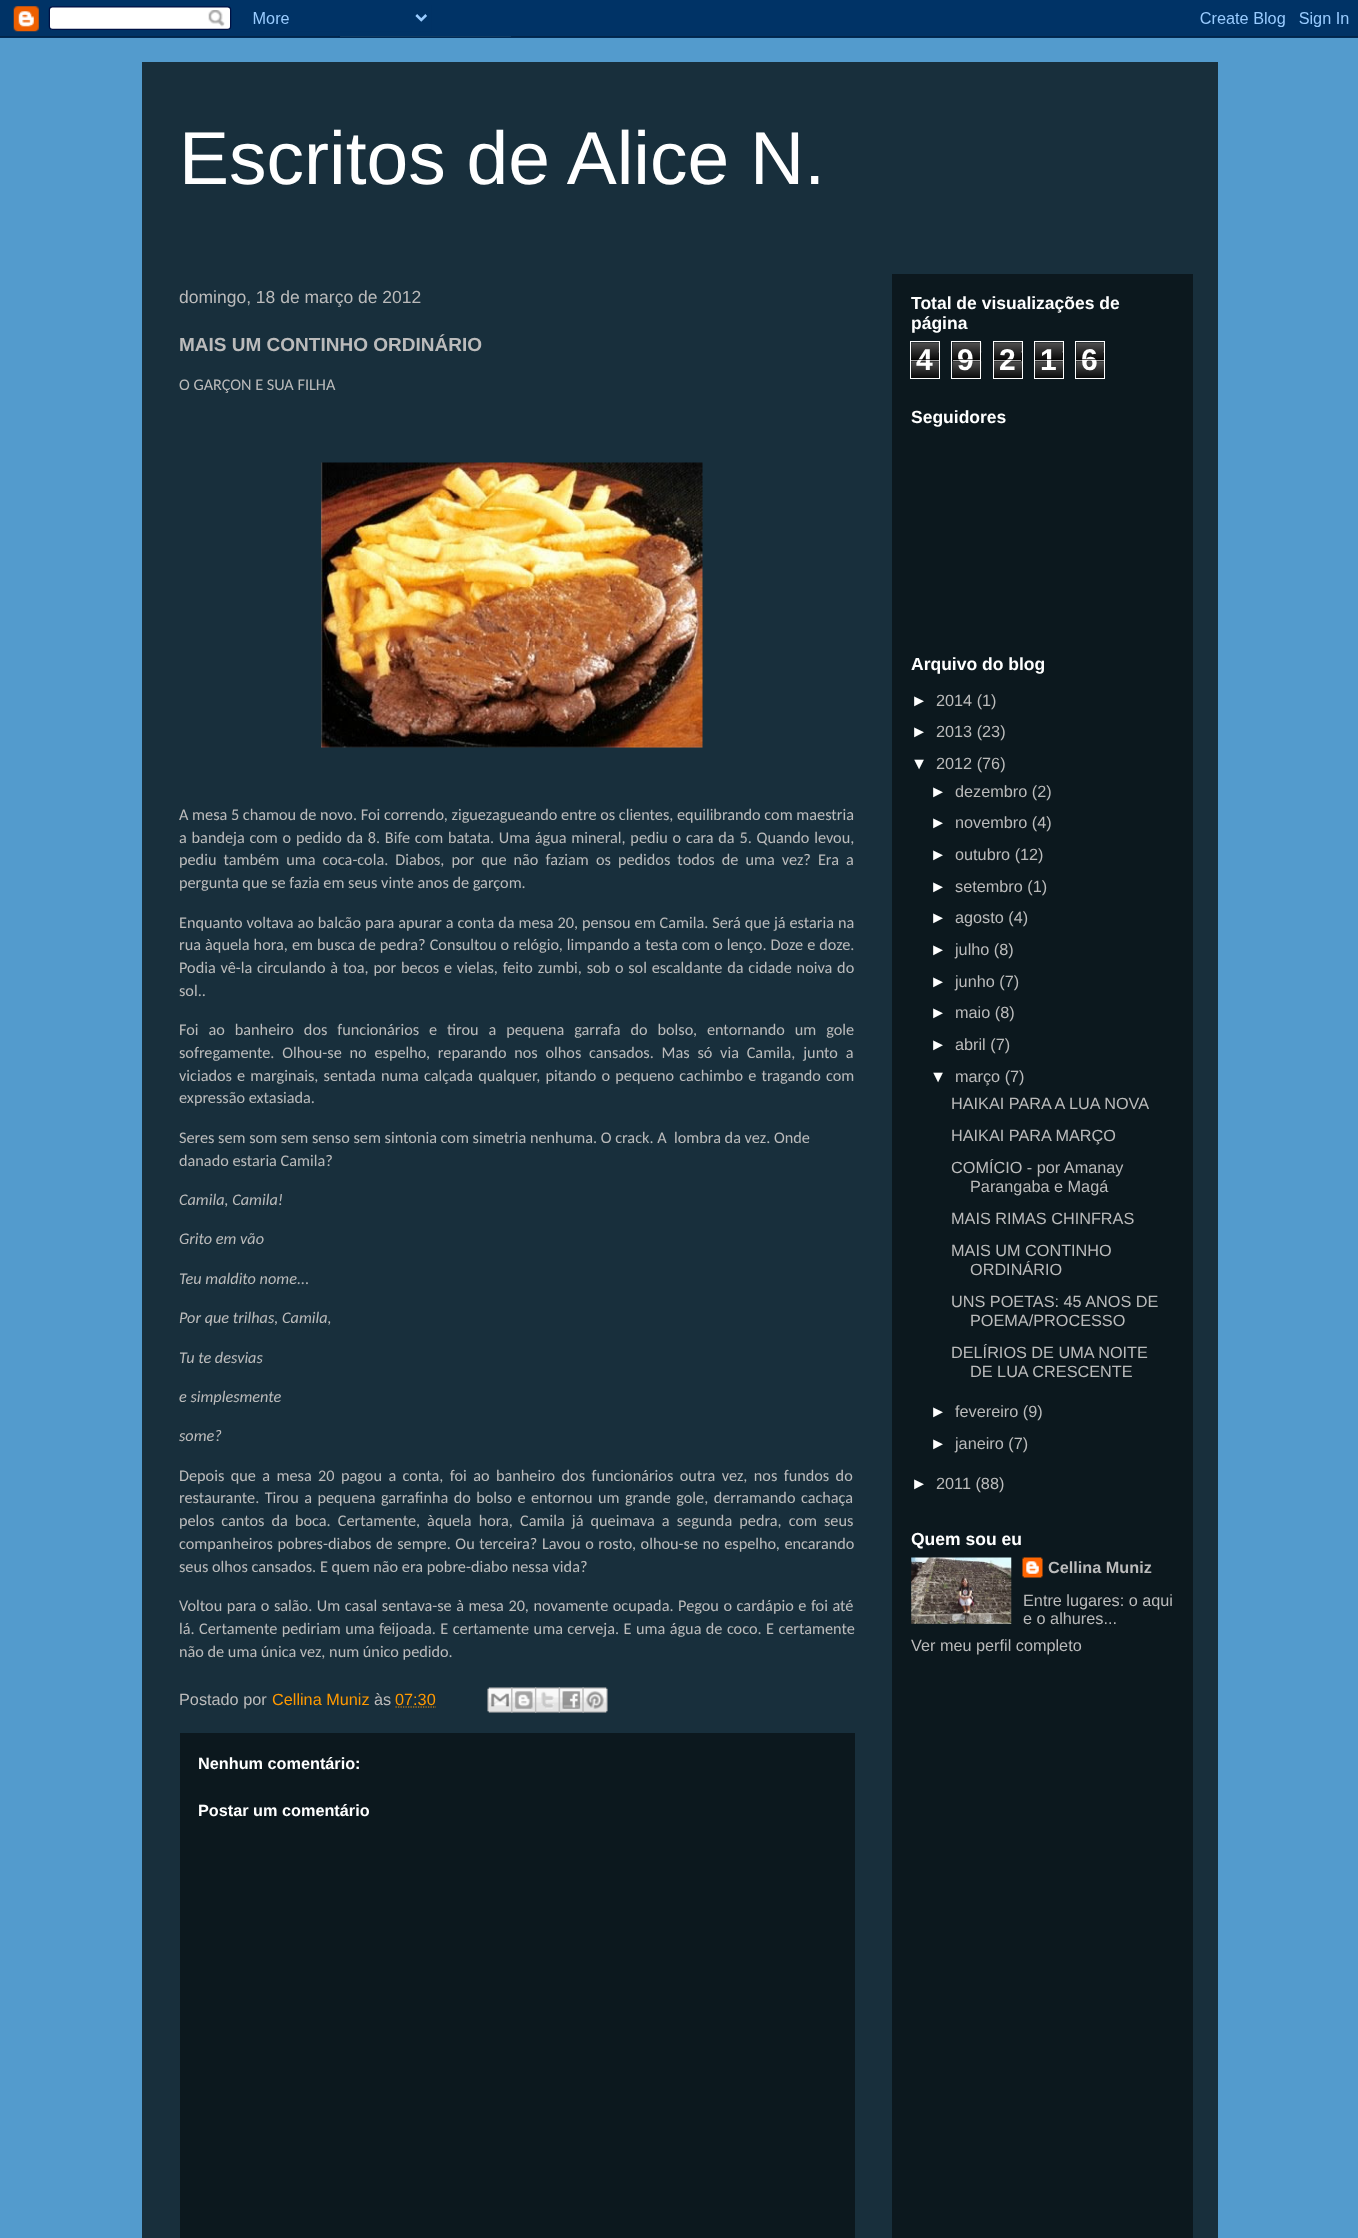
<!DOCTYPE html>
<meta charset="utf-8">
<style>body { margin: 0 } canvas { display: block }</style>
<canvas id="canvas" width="1358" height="2238"></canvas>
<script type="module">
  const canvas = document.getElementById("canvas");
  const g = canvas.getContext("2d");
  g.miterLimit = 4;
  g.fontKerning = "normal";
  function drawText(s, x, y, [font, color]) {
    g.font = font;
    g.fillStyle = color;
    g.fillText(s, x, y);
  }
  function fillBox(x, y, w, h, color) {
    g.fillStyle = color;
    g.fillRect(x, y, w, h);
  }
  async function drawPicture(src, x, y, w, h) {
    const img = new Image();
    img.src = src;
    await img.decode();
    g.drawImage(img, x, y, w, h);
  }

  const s1 = ["75px Liberation Sans", "#FFFFFF"];
  const s2 = ["17.5px Liberation Sans", "#BBBBBB"];
  const s3 = ["bold 19px Liberation Sans", "#BBBBBB"];
  const s4 = ["16.25px Carlito", "#BBBBBB"];
  const s5 = ["italic 16.25px Carlito", "#BBBBBB"];
  const s6 = ["16.25px Liberation Sans", "#BBBBBB"];
  const s7 = ["16.25px Liberation Sans", "#FF9900"];
  const s8 = ["bold 16.25px Liberation Sans", "#FFFFFF"];
  const s9 = ["bold 17.5px Liberation Sans", "#FFFFFF"];
  const s10 = ["bold 30px Liberation Sans", "#FFFFFF"];
  const s11 = ["16.25px Liberation Sans", "#FFFFFF"];
  const s12 = ["bold 16.25px Liberation Sans", "#BBBBBB"];

  fillBox(0, 0, 1358, 2238, "#539BCD");
  await drawPicture("pic1.png", 0, 0, 1358, 38);
  fillBox(142, 62, 1076, 2176, "#182F3C");
  drawText("Escritos de Alice N.", 179, 184, s1);
  fillBox(892, 274, 301, 1964, "#0C181E");
  drawText("domingo, 18 de março de 2012", 179, 303, s2);
  drawText("MAIS UM CONTINHO ORDINÁRIO", 179, 351, s3);
  drawText("O GARÇON E SUA FILHA", 179, 390, s4);
  await drawPicture("pic2.png", 321, 462, 382, 286);
  drawText("A mesa 5 chamou de novo. Foi correndo, ziguezagueando entre os clientes, equilibrando com maestria", 179, 820, s4);
  g.wordSpacing = "1.1px";
  drawText("a bandeja com o pedido da 8. Bife com batata. Uma água mineral, pediu o cara da 5. Quando levou,", 179, 843, s4);
  g.wordSpacing = "3.4px";
  drawText("pediu também uma coca-cola. Diabos, por que não faziam os pedidos todos de uma vez? Era a", 179, 865, s4);
  g.wordSpacing = "0px";
  drawText("pergunta que se fazia em seus vinte anos de garçom.", 179, 888, s4);
  g.wordSpacing = "0.25px";
  drawText("Enquanto voltava ao balcão para apurar a conta da mesa 20, pensou em Camila. Será que já estaria na", 179, 928, s4);
  g.wordSpacing = "0.4px";
  drawText("rua àquela hora, em busca de pedra? Consultou o relógio, limpando a testa com o lenço. Doze e doze.", 179, 950, s4);
  g.wordSpacing = "1.1px";
  drawText("Podia vê-la circulando à toa, por becos e vielas, feito zumbi, sob o sol escaldante da cidade noiva do", 179, 973, s4);
  g.wordSpacing = "0px";
  drawText("sol..", 179, 996, s4);
  g.wordSpacing = "6.25px";
  drawText("Foi ao banheiro dos funcionários e tirou a pequena garrafa do bolso, entornando um gole", 179, 1035, s4);
  g.wordSpacing = "4.1px";
  drawText("sofregamente. Olhou-se no espelho, reparando nos olhos cansados. Mas só via Camila, junto a", 179, 1058, s4);
  g.wordSpacing = "1.5px";
  drawText("viciados e marginais, sentada numa calçada qualquer, pitando o pequeno cachimbo e tragando com", 179, 1081, s4);
  g.wordSpacing = "0px";
  drawText("expressão extasiada.", 179, 1103, s4);
  drawText("Seres sem som sem senso sem sintonia com simetria nenhuma. O crack. A", 179, 1143, s4);
  drawText("lombra da vez. Onde", 674, 1143, s4);
  drawText("danado estaria Camila?", 179, 1166, s4);
  drawText("Camila, Camila!", 179, 1205, s5);
  drawText("Grito em vão", 179, 1244, s5);
  drawText("Teu maldito nome...", 179, 1284, s5);
  drawText("Por que trilhas, Camila,", 179, 1323, s5);
  drawText("Tu te desvias", 179, 1363, s5);
  drawText("e simplesmente", 179, 1402, s5);
  drawText("some?", 179, 1441, s5);
  g.wordSpacing = "2.75px";
  drawText("Depois que a mesa 20 pagou a conta, foi ao banheiro dos funcionários outra vez, nos fundos do", 179, 1481, s4);
  g.wordSpacing = "1.75px";
  drawText("restaurante. Tirou a pequena garrafinha do bolso e entornou um grande gole, derramando cachaça", 179, 1503, s4);
  g.wordSpacing = "3.4px";
  drawText("pelos cantos da boca. Certamente, àquela hora, Camila já queimava a segunda pedra, com seus", 179, 1526, s4);
  g.wordSpacing = "0.9px";
  drawText("companheiros pobres-diabos de sempre. Ou terceira? Lavou o rosto, olhou-se no espelho, encarando", 179, 1549, s4);
  g.wordSpacing = "0px";
  drawText("seus olhos cansados. E quem não era pobre-diabo nessa vida?", 179, 1572, s4);
  g.wordSpacing = "0.9px";
  drawText("Voltou para o salão. Um casal sentava-se à mesa 20, novamente ocupada. Pegou o cardápio e foi até", 179, 1611, s4);
  g.wordSpacing = "0.75px";
  drawText("lá. Certamente pediriam uma feijoada. E certamente uma cerveja. E uma água de coco. E certamente", 179, 1634, s4);
  g.wordSpacing = "0px";
  drawText("não de uma única vez, num único pedido.", 179, 1657, s4);
  drawText("Postado por", 179, 1705, s6);
  drawText("Cellina Muniz", 272, 1705, s7);
  drawText("às", 374, 1705, s6);
  drawText("07:30", 395, 1705, s7);
  g.beginPath();
  g.moveTo(395.5, 1707);
  g.lineTo(436, 1707);
  g.strokeStyle = "#FF9900";
  g.lineWidth = 1.2;
  g.setLineDash([1.25, 1.25]);
  g.stroke();
  await drawPicture("pic3.png", 487, 1687, 26, 26);
  await drawPicture("pic4.png", 511, 1687, 26, 26);
  await drawPicture("pic5.png", 535, 1687, 25, 26);
  await drawPicture("pic6.png", 558, 1687, 26, 26);
  await drawPicture("pic7.png", 582, 1687, 26, 26);
  fillBox(180, 1733, 675, 505, "#0C181E");
  drawText("Nenhum comentário:", 198, 1769, s8);
  drawText("Postar um comentário", 198, 1816, s8);
  drawText("Total de visualizações de", 911, 309, s9);
  drawText("página", 911, 329, s9);
  await drawPicture("pic8.png", 911, 342, 28, 36);
  g.strokeStyle = "#FFFFFF";
  g.lineWidth = 1;
  g.setLineDash([]);
  g.strokeRect(910.5, 341.5, 29, 37);
  drawText("4", 916, 370, s10);
  fillBox(911, 359, 28, 1, "rgba(0, 0, 0, 0.65)");
  fillBox(911, 360, 28, 1, "rgba(255, 255, 255, 0.65)");
  await drawPicture("pic9.png", 952, 342, 30, 37);
  g.strokeRect(951.5, 341.5, 29, 37);
  drawText("9", 957, 370, s10);
  fillBox(953, 359, 27, 1, "rgba(0, 0, 0, 0.65)");
  fillBox(953, 360, 27, 1, "rgba(255, 255, 255, 0.65)");
  await drawPicture("pic10.png", 994, 342, 28, 36);
  g.strokeRect(993.5, 341.5, 29, 37);
  drawText("2", 999, 370, s10);
  fillBox(994, 359, 27, 1, "rgba(0, 0, 0, 0.65)");
  fillBox(994, 360, 27, 1, "rgba(255, 255, 255, 0.65)");
  await drawPicture("pic11.png", 1035, 342, 28, 36);
  g.strokeRect(1034.5, 341.5, 29, 37);
  drawText("1", 1040, 370, s10);
  fillBox(1035, 359, 28, 1, "rgba(0, 0, 0, 0.65)");
  fillBox(1035, 360, 28, 1, "rgba(255, 255, 255, 0.65)");
  await drawPicture("pic8.png", 1076, 342, 28, 36);
  g.strokeRect(1075.5, 341.5, 29, 37);
  drawText("6", 1081, 370, s10);
  fillBox(1076, 359, 28, 1, "rgba(0, 0, 0, 0.65)");
  fillBox(1076, 360, 28, 1, "rgba(255, 255, 255, 0.65)");
  drawText("Seguidores", 911, 423, s9);
  drawText("Arquivo do blog", 911, 670, s9);
  drawText("►", 911, 706, s11);
  drawText("2014 (1)", 936, 706, s6);
  drawText("►", 911, 737, s11);
  drawText("2013 (23)", 936, 737, s6);
  drawText("▼", 911, 769, s11);
  drawText("2012 (76)", 936, 769, s6);
  drawText("►", 930, 797, s11);
  drawText("dezembro (2)", 955, 797, s6);
  drawText("►", 930, 828, s11);
  drawText("novembro (4)", 955, 828, s6);
  drawText("►", 930, 860, s11);
  drawText("outubro (12)", 955, 860, s6);
  drawText("►", 930, 892, s11);
  drawText("setembro (1)", 955, 892, s6);
  drawText("►", 930, 923, s11);
  drawText("agosto (4)", 955, 923, s6);
  drawText("►", 930, 955, s11);
  drawText("julho (8)", 955, 955, s6);
  drawText("►", 930, 987, s11);
  drawText("junho (7)", 955, 987, s6);
  drawText("►", 930, 1018, s11);
  drawText("maio (8)", 955, 1018, s6);
  drawText("►", 930, 1050, s11);
  drawText("abril (7)", 955, 1050, s6);
  drawText("▼", 930, 1082, s11);
  drawText("março (7)", 955, 1082, s6);
  drawText("HAIKAI PARA A LUA NOVA", 951, 1109, s6);
  drawText("HAIKAI PARA MARÇO", 951, 1141, s6);
  drawText("COMÍCIO - por Amanay", 951, 1173, s6);
  drawText("Parangaba e Magá", 970, 1192, s6);
  drawText("MAIS RIMAS CHINFRAS", 951, 1224, s6);
  drawText("MAIS UM CONTINHO", 951, 1256, s6);
  drawText("ORDINÁRIO", 970, 1275, s6);
  drawText("UNS POETAS: 45 ANOS DE", 951, 1307, s6);
  drawText("POEMA/PROCESSO", 970, 1326, s6);
  drawText("DELÍRIOS DE UMA NOITE", 951, 1358, s6);
  drawText("DE LUA CRESCENTE", 970, 1377, s6);
  drawText("►", 930, 1417, s11);
  drawText("fevereiro (9)", 955, 1417, s6);
  drawText("►", 930, 1449, s11);
  drawText("janeiro (7)", 955, 1449, s6);
  drawText("►", 911, 1489, s11);
  drawText("2011 (88)", 936, 1489, s6);
  drawText("Quem sou eu", 911, 1545, s9);
  await drawPicture("pic12.png", 911, 1557, 101, 67);
  await drawPicture("pic13.png", 1022, 1557, 21, 21);
  drawText("Cellina Muniz", 1048, 1573, s12);
  drawText("Entre lugares: o aqui", 1023, 1606, s6);
  drawText("e o alhures...", 1023, 1624, s6);
  drawText("Ver meu perfil completo", 911, 1651, s6);
</script>
